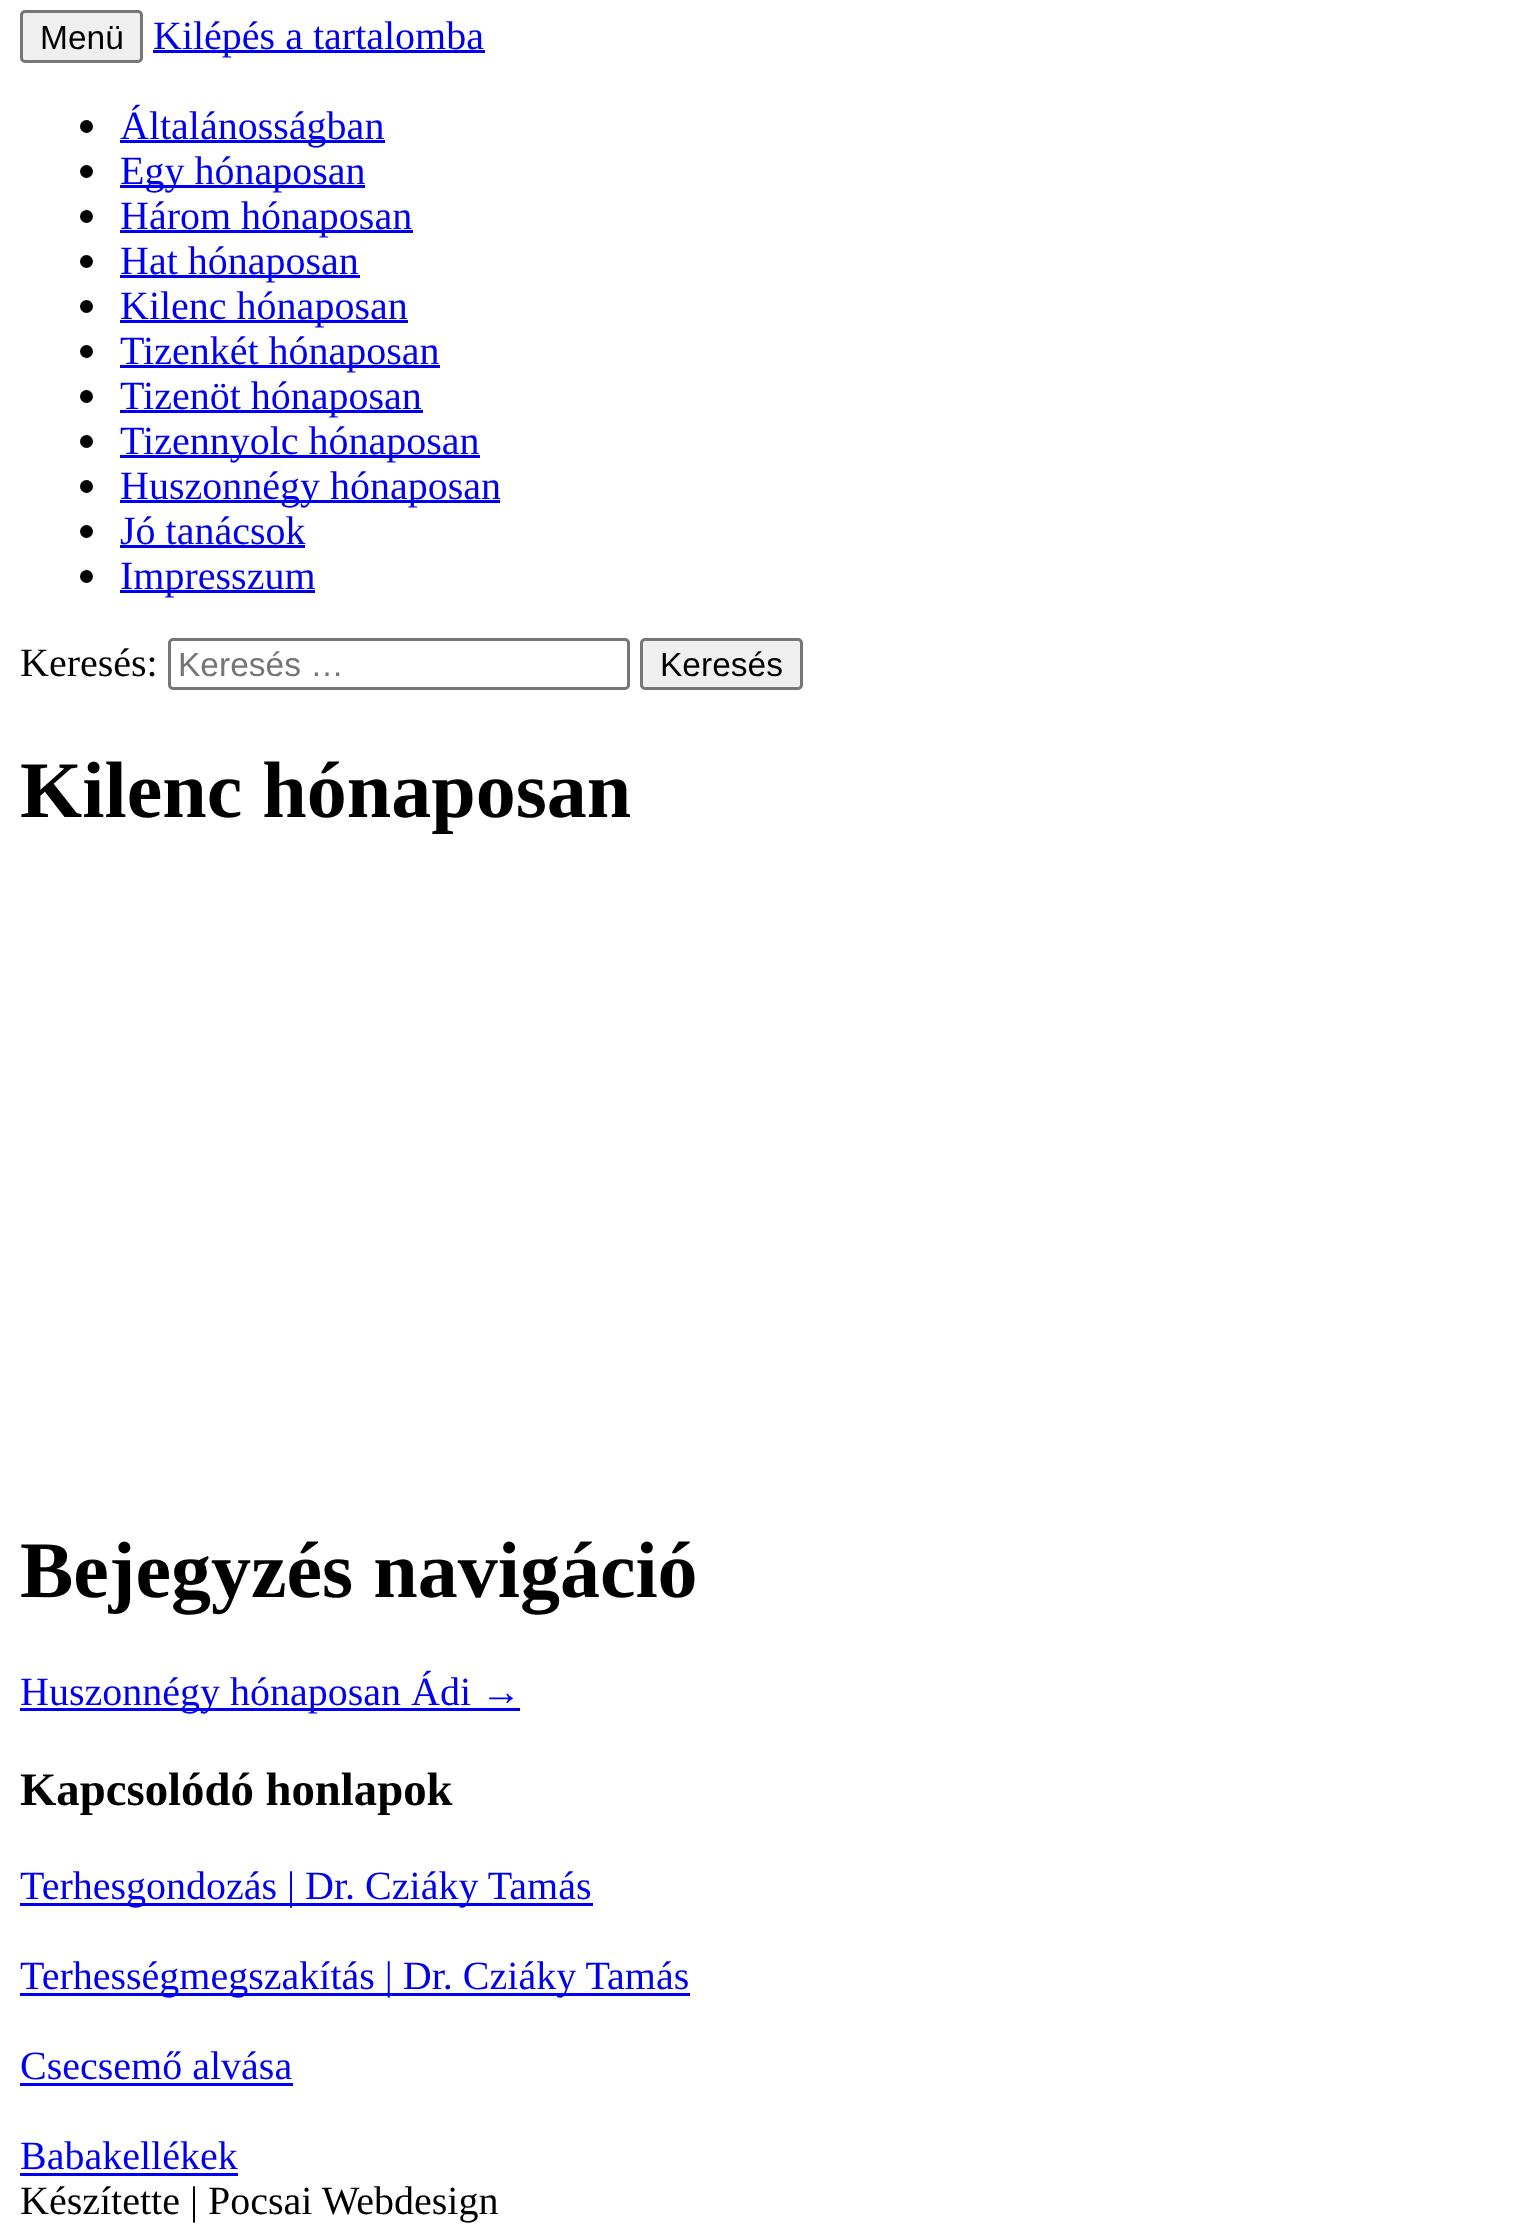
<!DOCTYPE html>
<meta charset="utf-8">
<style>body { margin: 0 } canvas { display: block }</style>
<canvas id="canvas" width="1515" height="2235"></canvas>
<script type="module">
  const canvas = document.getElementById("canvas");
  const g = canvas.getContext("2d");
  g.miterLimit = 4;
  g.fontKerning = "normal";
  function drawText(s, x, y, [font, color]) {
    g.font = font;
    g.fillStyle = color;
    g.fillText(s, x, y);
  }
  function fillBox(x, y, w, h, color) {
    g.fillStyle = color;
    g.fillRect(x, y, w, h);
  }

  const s1 = ["33.5px Liberation Sans", "#000000"];
  const s2 = ["40px Liberation Serif", "#0000EE"];
  const s3 = ["40px Liberation Serif", "#000000"];
  const s4 = ["33.5px Liberation Sans", "#757575"];
  const s5 = ["bold 80px Liberation Serif", "#000000"];
  const s6 = ["bold 46.75px Liberation Serif", "#000000"];

  fillBox(0, 0, 1515, 2235, "#FFFFFF");
  g.fillStyle = "#EFEFEF";
  g.beginPath();
  g.roundRect(21.5, 11.5, 120, 50, 3.5);
  g.fill();
  g.strokeStyle = "#767676";
  g.lineWidth = 3;
  g.stroke();
  drawText("Menü", 40, 49, s1);
  fillBox(153, 50, 332, 3, "#0000EE");
  drawText("Kilépés a tartalomba", 153, 49, s2);
  g.fillStyle = "#000000";
  g.beginPath();
  g.arc(86.5, 126.5, 6.5, 0, Math.PI * 2);
  g.fill();
  fillBox(120, 140, 265, 3, "#0000EE");
  drawText("Általánosságban", 120, 139, s2);
  g.fillStyle = "#000000";
  g.beginPath();
  g.arc(86.5, 171.5, 6.5, 0, Math.PI * 2);
  g.fill();
  fillBox(120, 185, 245, 3, "#0000EE");
  drawText("Egy hónaposan", 120, 184, s2);
  g.fillStyle = "#000000";
  g.beginPath();
  g.arc(86.5, 216.5, 6.5, 0, Math.PI * 2);
  g.fill();
  fillBox(120, 230, 293, 3, "#0000EE");
  drawText("Három hónaposan", 120, 229, s2);
  g.fillStyle = "#000000";
  g.beginPath();
  g.arc(86.5, 261.5, 6.5, 0, Math.PI * 2);
  g.fill();
  fillBox(120, 275, 240, 3, "#0000EE");
  drawText("Hat hónaposan", 120, 274, s2);
  g.fillStyle = "#000000";
  g.beginPath();
  g.arc(86.5, 306.5, 6.5, 0, Math.PI * 2);
  g.fill();
  fillBox(120, 320, 288, 3, "#0000EE");
  drawText("Kilenc hónaposan", 120, 319, s2);
  g.fillStyle = "#000000";
  g.beginPath();
  g.arc(86.5, 351.5, 6.5, 0, Math.PI * 2);
  g.fill();
  fillBox(120, 365, 320, 3, "#0000EE");
  drawText("Tizenkét hónaposan", 120, 364, s2);
  g.fillStyle = "#000000";
  g.beginPath();
  g.arc(86.5, 396.5, 6.5, 0, Math.PI * 2);
  g.fill();
  fillBox(120, 410, 303, 3, "#0000EE");
  drawText("Tizenöt hónaposan", 120, 409, s2);
  g.fillStyle = "#000000";
  g.beginPath();
  g.arc(86.5, 441.5, 6.5, 0, Math.PI * 2);
  g.fill();
  fillBox(120, 455, 360, 3, "#0000EE");
  drawText("Tizennyolc hónaposan", 120, 454, s2);
  g.fillStyle = "#000000";
  g.beginPath();
  g.arc(86.5, 486.5, 6.5, 0, Math.PI * 2);
  g.fill();
  fillBox(120, 500, 380, 3, "#0000EE");
  drawText("Huszonnégy hónaposan", 120, 499, s2);
  g.fillStyle = "#000000";
  g.beginPath();
  g.arc(86.5, 531.5, 6.5, 0, Math.PI * 2);
  g.fill();
  drawText("Jó tanácsok", 120, 544, s2);
  fillBox(120, 545, 185, 3, "#0000EE");
  g.fillStyle = "#000000";
  g.beginPath();
  g.arc(86.5, 576.5, 6.5, 0, Math.PI * 2);
  g.fill();
  fillBox(120, 590, 195, 3, "#0000EE");
  drawText("Impresszum", 120, 589, s2);
  drawText("Keresés:", 20, 676, s3);
  g.beginPath();
  g.roundRect(169.5, 639.5, 459, 49, 3.5);
  g.stroke();
  drawText("Keresés …", 178, 676, s4);
  g.fillStyle = "#EFEFEF";
  g.beginPath();
  g.roundRect(641.5, 639.5, 160, 49, 3.5);
  g.fill();
  g.stroke();
  drawText("Keresés", 660, 676, s1);
  drawText("Kilenc hónaposan", 20, 817, s5);
  drawText("Bejegyzés navigáció", 20, 1597, s5);
  fillBox(20, 1708, 500, 3, "#0000EE");
  drawText("Huszonnégy hónaposan Ádi →", 20, 1705, s2);
  drawText("Kapcsolódó honlapok", 20, 1805, s6);
  fillBox(20, 1903, 573, 3, "#0000EE");
  drawText("Terhesgondozás | Dr. Cziáky Tamás", 20, 1899, s2);
  fillBox(20, 1993, 670, 3, "#0000EE");
  drawText("Terhességmegszakítás | Dr. Cziáky Tamás", 20, 1989, s2);
  drawText("Csecsemő alvása", 20, 2079, s2);
  fillBox(20, 2083, 273, 3, "#0000EE");
  drawText("Babakellékek", 20, 2169, s2);
  fillBox(20, 2173, 218, 3, "#0000EE");
  drawText("Készítette | Pocsai Webdesign", 20, 2214, s3);
</script>
